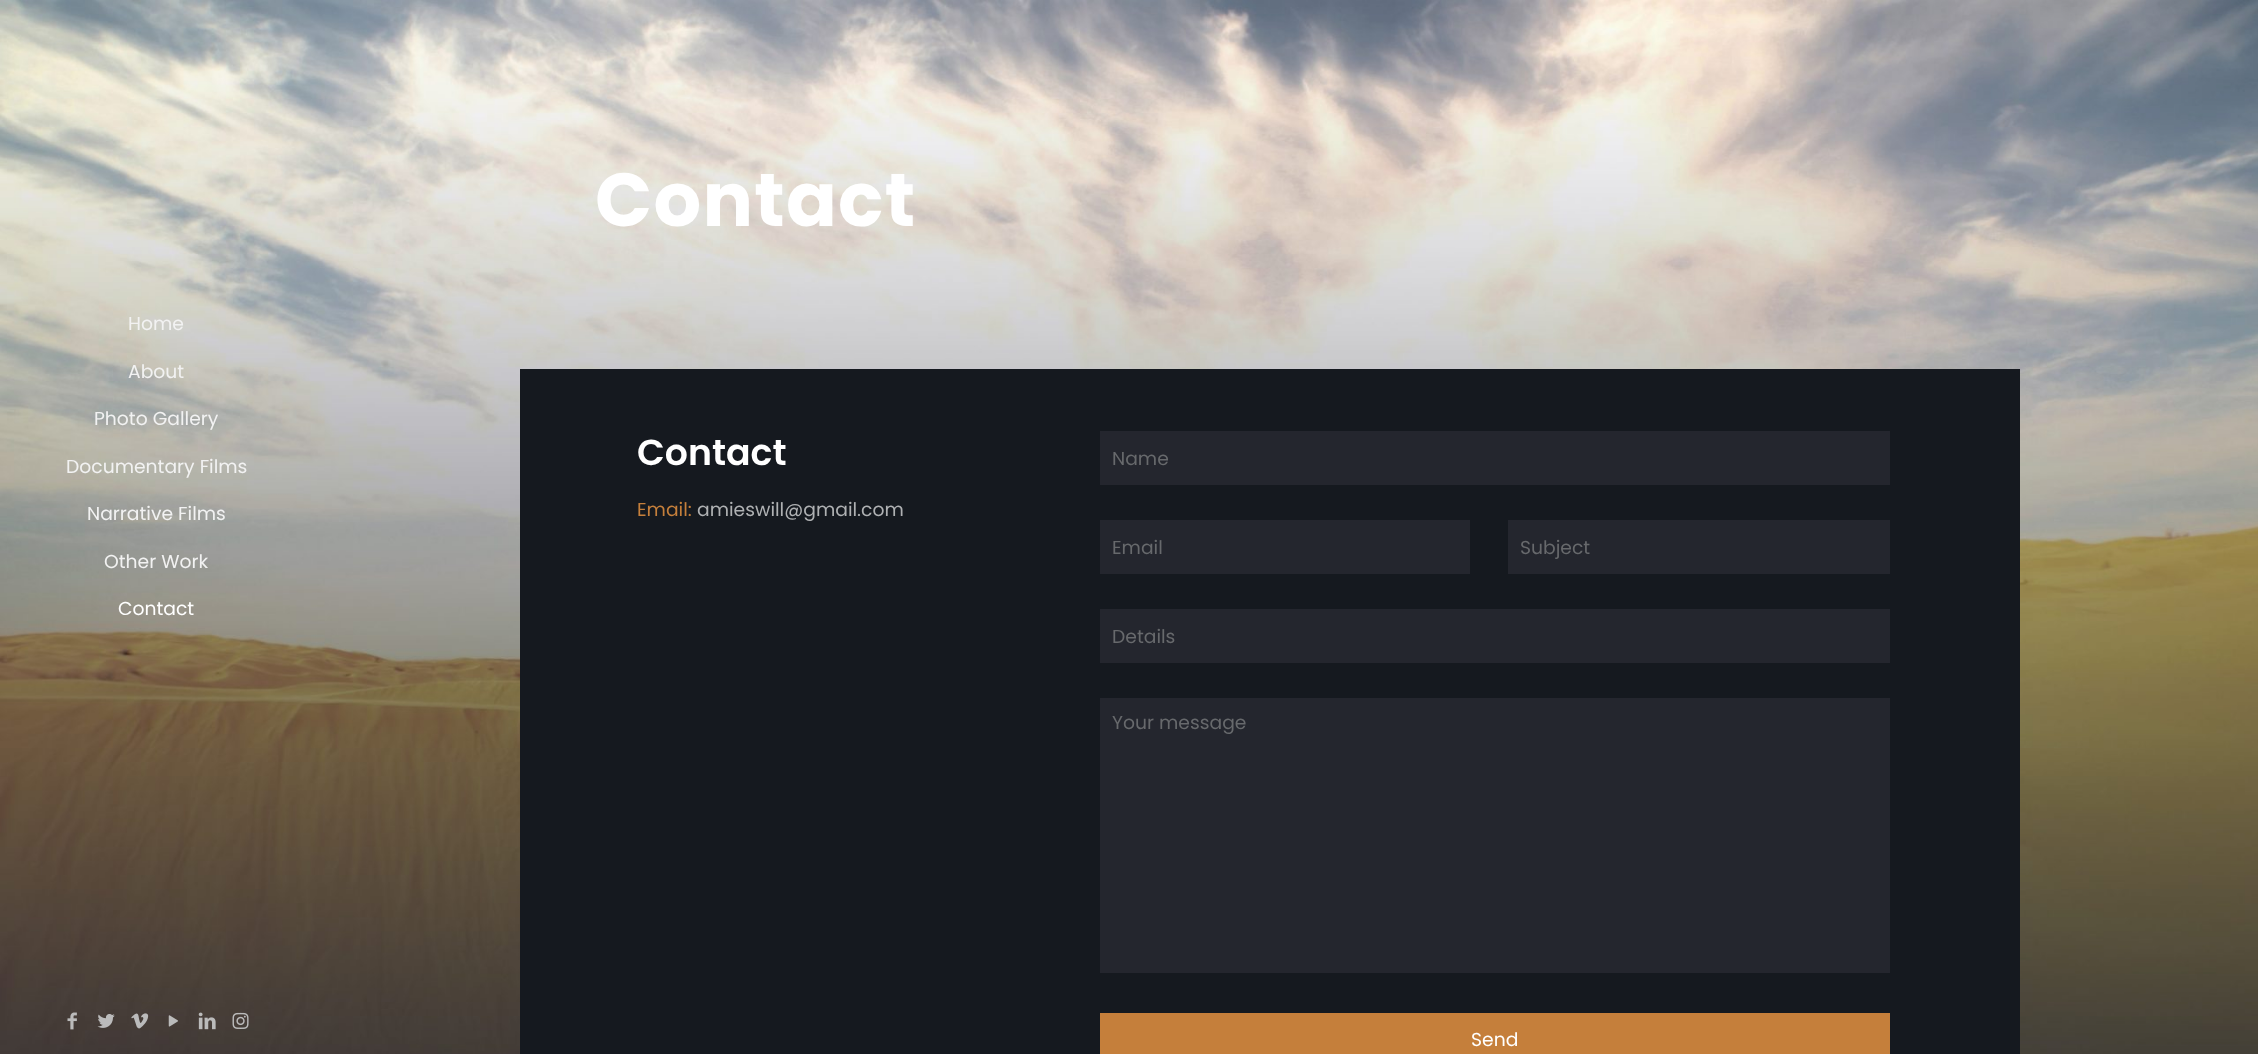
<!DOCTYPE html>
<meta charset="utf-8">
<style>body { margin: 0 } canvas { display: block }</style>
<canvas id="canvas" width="2258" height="1054"></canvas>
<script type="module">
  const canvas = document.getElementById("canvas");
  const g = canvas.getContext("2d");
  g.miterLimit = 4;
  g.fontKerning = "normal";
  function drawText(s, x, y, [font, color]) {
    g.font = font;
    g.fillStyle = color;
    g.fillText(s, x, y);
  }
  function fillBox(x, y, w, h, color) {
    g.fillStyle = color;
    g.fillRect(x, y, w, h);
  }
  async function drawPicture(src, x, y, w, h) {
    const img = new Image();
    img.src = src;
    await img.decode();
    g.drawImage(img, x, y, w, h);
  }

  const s1 = ["18.75px Poppins", "#F2F2F2"];
  const s2 = ["18.75px Poppins", "#FFFFFF"];
  const s3 = ["bold 75px Poppins", "#FFFFFF"];
  const s4 = ["600 36.25px Poppins", "#FFFFFF"];
  const s5 = ["18.75px Poppins", "#C57F3B"];
  const s6 = ["18.75px Poppins", "#AFB1B3"];
  const s7 = ["18.75px Poppins", "#67696C"];

  fillBox(0, 0, 2258, 1054, "#FFFFFF");
  await drawPicture("pic1.png", 0, 0, 2258, 1054);
  drawText("Home", 128, 330, s1);
  drawText("About", 128, 378, s1);
  drawText("Photo Gallery", 94, 425, s1);
  drawText("Documentary Films", 66, 473, s1);
  drawText("Narrative Films", 87, 520, s1);
  drawText("Other Work", 104, 568, s1);
  drawText("Contact", 118, 615, s2);
  await drawPicture("pic2.png", 67, 1012, 10, 18);
  await drawPicture("pic3.png", 97, 1014, 18, 14);
  await drawPicture("pic4.png", 131, 1013, 18, 16);
  await drawPicture("pic5.png", 168, 1015, 10, 12);
  await drawPicture("pic6.png", 198, 1012, 18, 18);
  await drawPicture("pic7.png", 232, 1012, 17, 17);
  g.letterSpacing = "1.25px";
  drawText("Contact", 595, 226, s3);
  fillBox(520, 369, 1500, 685, "#15191F");
  g.letterSpacing = "0px";
  drawText("Contact", 637, 465, s4);
  drawText("Email:", 637, 516, s5);
  drawText("amieswill@gmail.com", 697, 516, s6);
  fillBox(1100, 431, 790, 54, "#24262E");
  drawText("Name", 1112, 465, s7);
  fillBox(1100, 520, 370, 54, "#24262E");
  drawText("Email", 1112, 554, s7);
  fillBox(1508, 520, 382, 54, "#24262E");
  drawText("Subject", 1520, 554, s7);
  fillBox(1100, 609, 790, 54, "#24262E");
  drawText("Details", 1112, 643, s7);
  fillBox(1100, 698, 790, 275, "#24262E");
  drawText("Your message", 1112, 729, s7);
  fillBox(1100, 1013, 790, 41, "#C57F3B");
  drawText("Send", 1471, 1046, s2);
</script>
